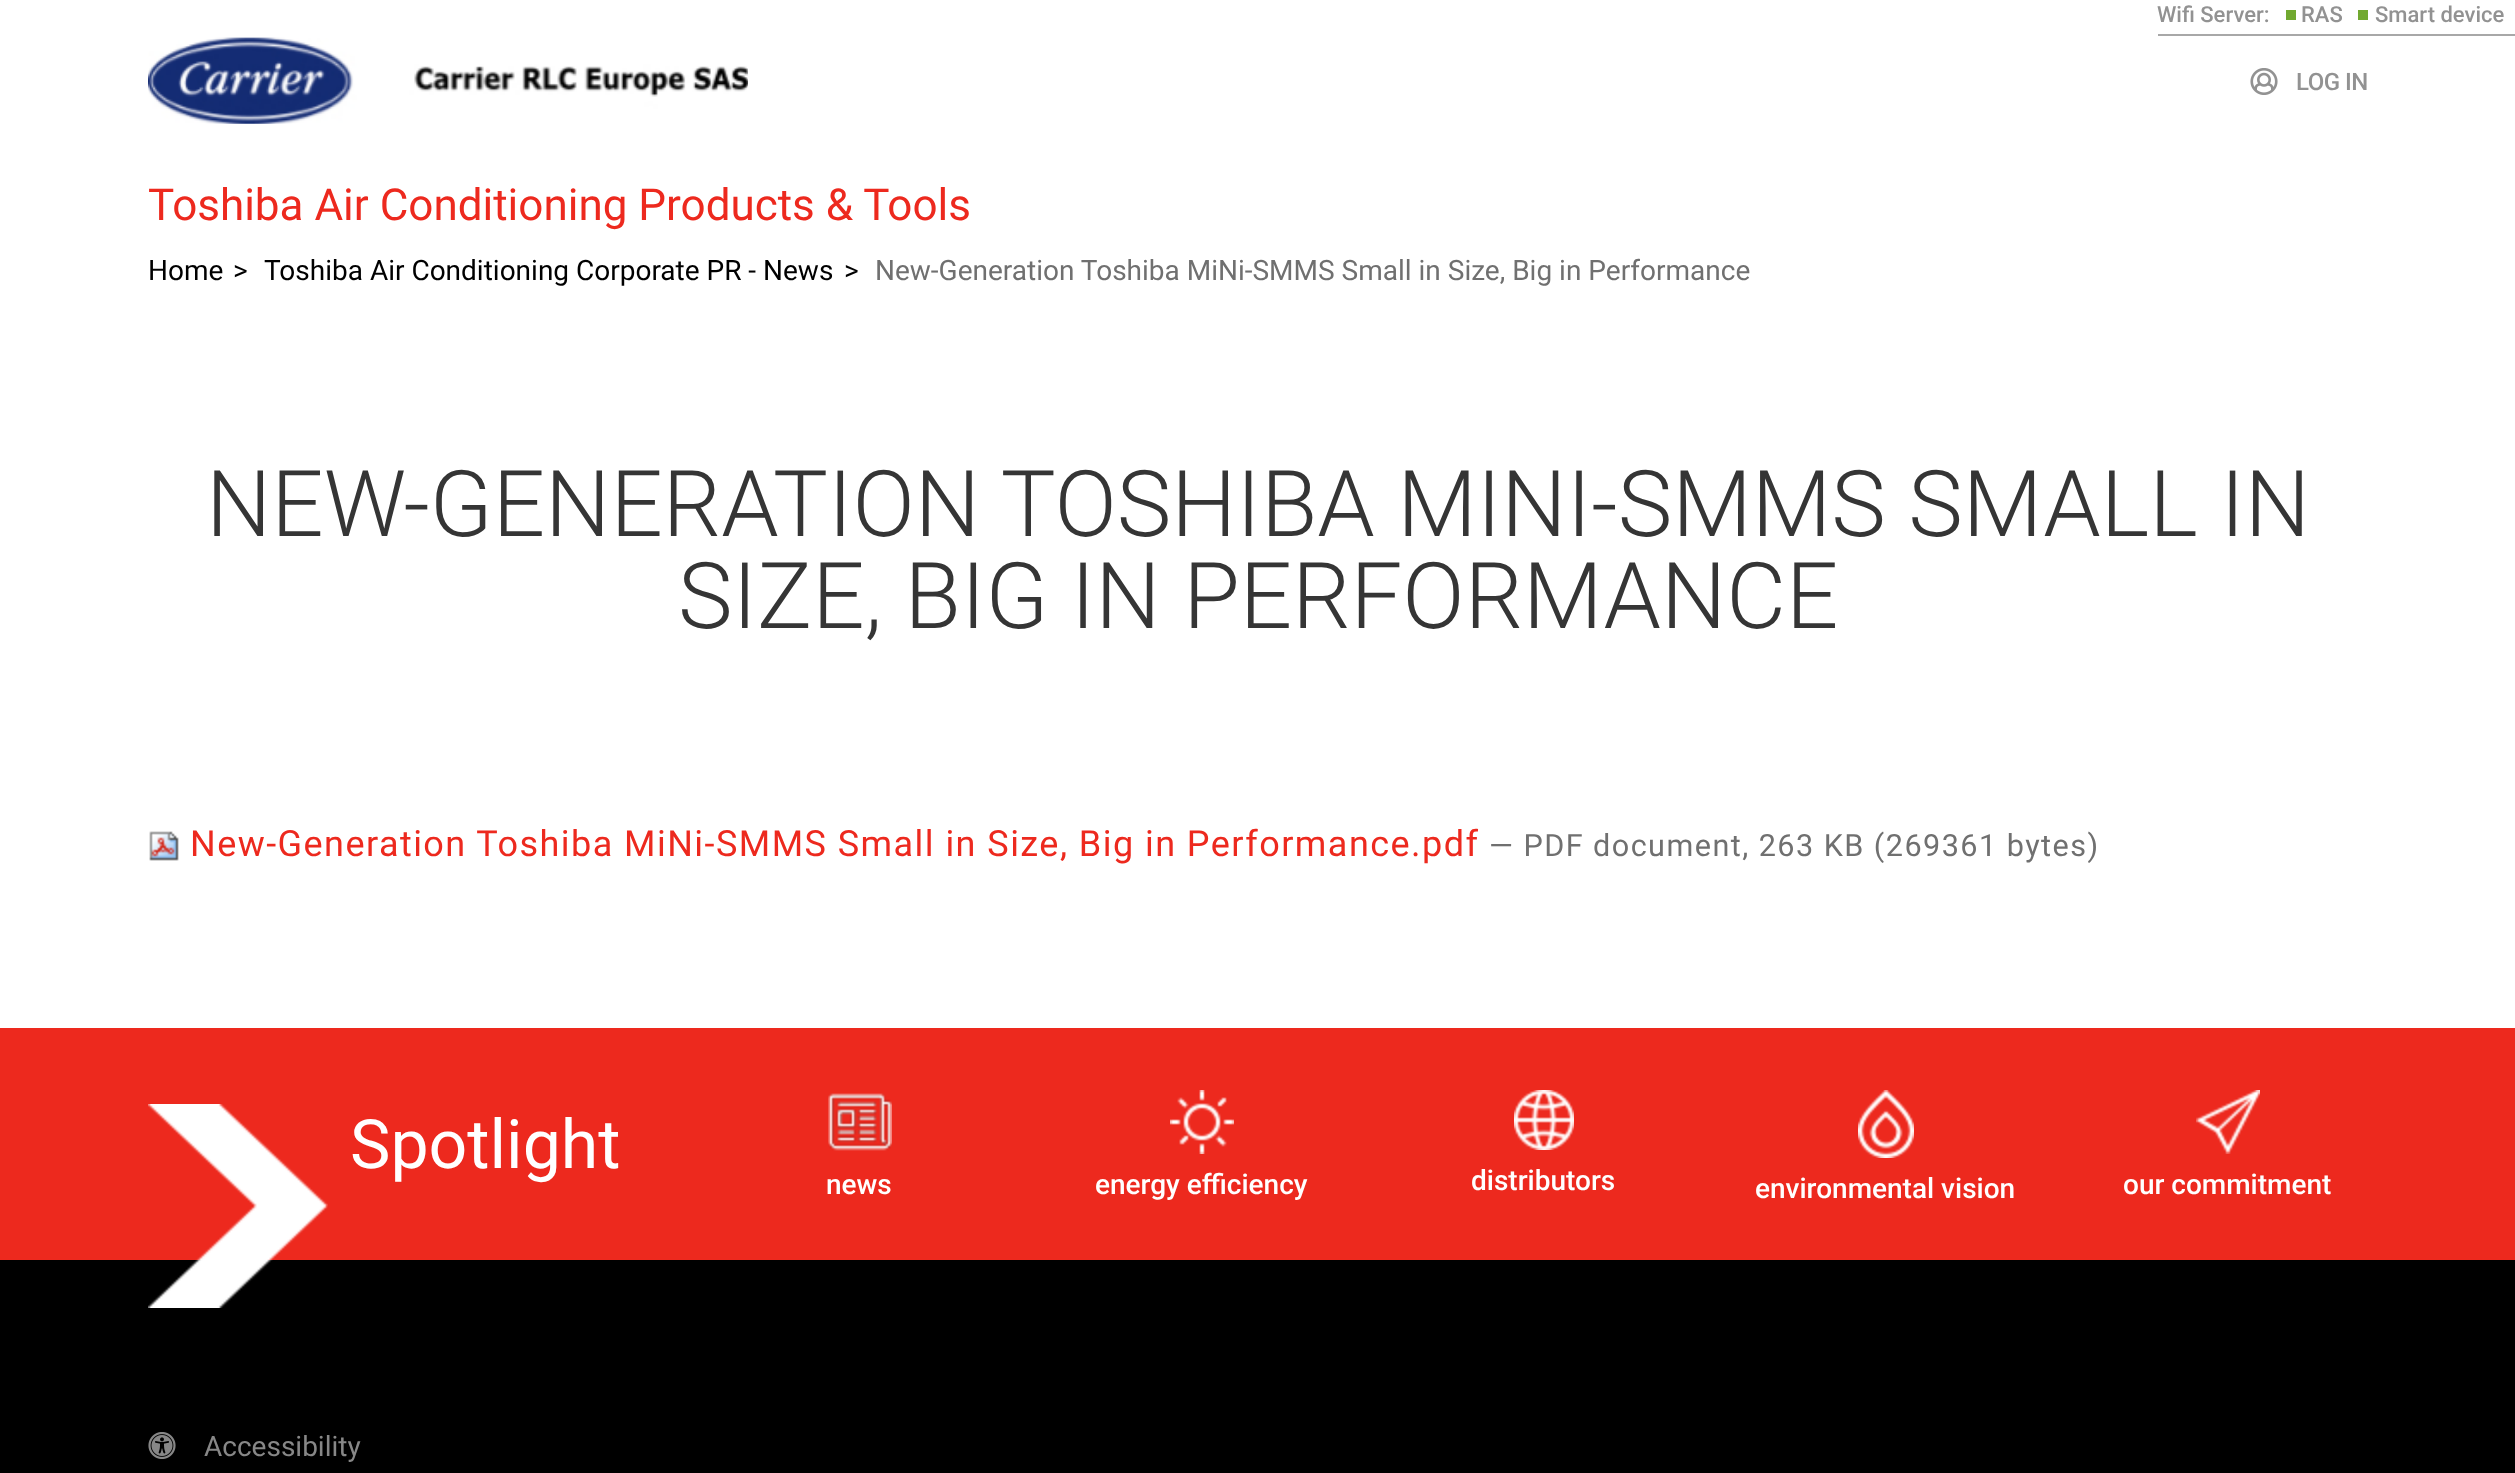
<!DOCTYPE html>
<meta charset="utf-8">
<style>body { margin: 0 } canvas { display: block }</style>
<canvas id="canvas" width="2515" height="1473"></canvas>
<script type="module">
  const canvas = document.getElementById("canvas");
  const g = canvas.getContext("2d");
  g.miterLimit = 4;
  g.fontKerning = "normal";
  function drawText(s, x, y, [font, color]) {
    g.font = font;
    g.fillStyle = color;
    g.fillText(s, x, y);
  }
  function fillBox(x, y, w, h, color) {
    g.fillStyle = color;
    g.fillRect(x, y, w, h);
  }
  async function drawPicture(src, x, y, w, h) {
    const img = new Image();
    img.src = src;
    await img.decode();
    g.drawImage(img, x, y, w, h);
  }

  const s1 = ["500 22px Roboto", "#929292"];
  const s2 = ["500 24px Roboto", "#929292"];
  const s3 = ["44px Roboto", "#ED291E"];
  const s4 = ["28px Roboto", "#000000"];
  const s5 = ["28px Roboto", "#707070"];
  const s6 = ["300 92px Roboto", "#353535"];
  const s7 = ["36px Roboto", "#ED291E"];
  const s8 = ["30.6px Roboto", "#707070"];
  const s9 = ["68px Roboto", "#FFFFFF"];
  const s10 = ["500 28px Roboto", "#FFFFFF"];
  const s11 = ["28px Roboto", "#878787"];

  fillBox(0, 0, 2515, 1473, "#FFFFFF");
  fillBox(2158, 34, 357, 2, "#A8A8A8");
  drawText("Wifi Server:", 2157, 22, s1);
  fillBox(2286, 10, 10, 10, "#71A930");
  drawText("RAS", 2301, 22, s1);
  fillBox(2358, 10, 10, 10, "#71A930");
  drawText("Smart device", 2375, 22, s1);
  await drawPicture("pic1.png", 148, 37, 600, 87);
  await drawPicture("pic2.png", 2250, 68, 28, 27);
  g.letterSpacing = "-0.5px";
  drawText("LOG IN", 2296, 90, s2);
  g.letterSpacing = "0px";
  drawText("Toshiba Air Conditioning Products & Tools", 148, 220, s3);
  drawText("Home", 148, 280, s4);
  drawText(">", 233, 280, s4);
  drawText("Toshiba Air Conditioning Corporate PR - News", 264, 280, s4);
  drawText(">", 844, 280, s4);
  drawText("New-Generation Toshiba MiNi-SMMS Small in Size, Big in Performance", 875, 280, s5);
  drawText("NEW-GENERATION TOSHIBA MINI-SMMS SMALL IN", 206, 536, s6);
  drawText("SIZE, BIG IN PERFORMANCE", 678, 628, s6);
  await drawPicture("pic3.png", 149, 831, 30, 30);
  g.letterSpacing = "1.45px";
  drawText("New-Generation Toshiba MiNi-SMMS Small in Size, Big in Performance.pdf", 190, 856, s7);
  drawText("— PDF document, 263 KB (269361 bytes)", 1489, 856, s8);
  fillBox(0, 1028, 2515, 232, "#ED291E");
  fillBox(0, 1260, 2515, 213, "#000000");
  await drawPicture("pic4.png", 148, 1104, 180, 204);
  g.letterSpacing = "0px";
  drawText("Spotlight", 350, 1168, s9);
  await drawPicture("pic5.png", 828, 1093, 64, 58);
  drawText("news", 826, 1194, s10);
  await drawPicture("pic6.png", 1170, 1090, 64, 64);
  drawText("energy efficiency", 1095, 1194, s10);
  await drawPicture("pic7.png", 1514, 1090, 60, 60);
  drawText("distributors", 1471, 1190, s10);
  await drawPicture("pic8.png", 1858, 1090, 56, 68);
  drawText("environmental vision", 1755, 1198, s10);
  await drawPicture("pic9.png", 2196, 1090, 64, 64);
  drawText("our commitment", 2123, 1194, s10);
  await drawPicture("pic10.png", 148, 1432, 28, 27);
  drawText("Accessibility", 204, 1456, s11);
</script>
